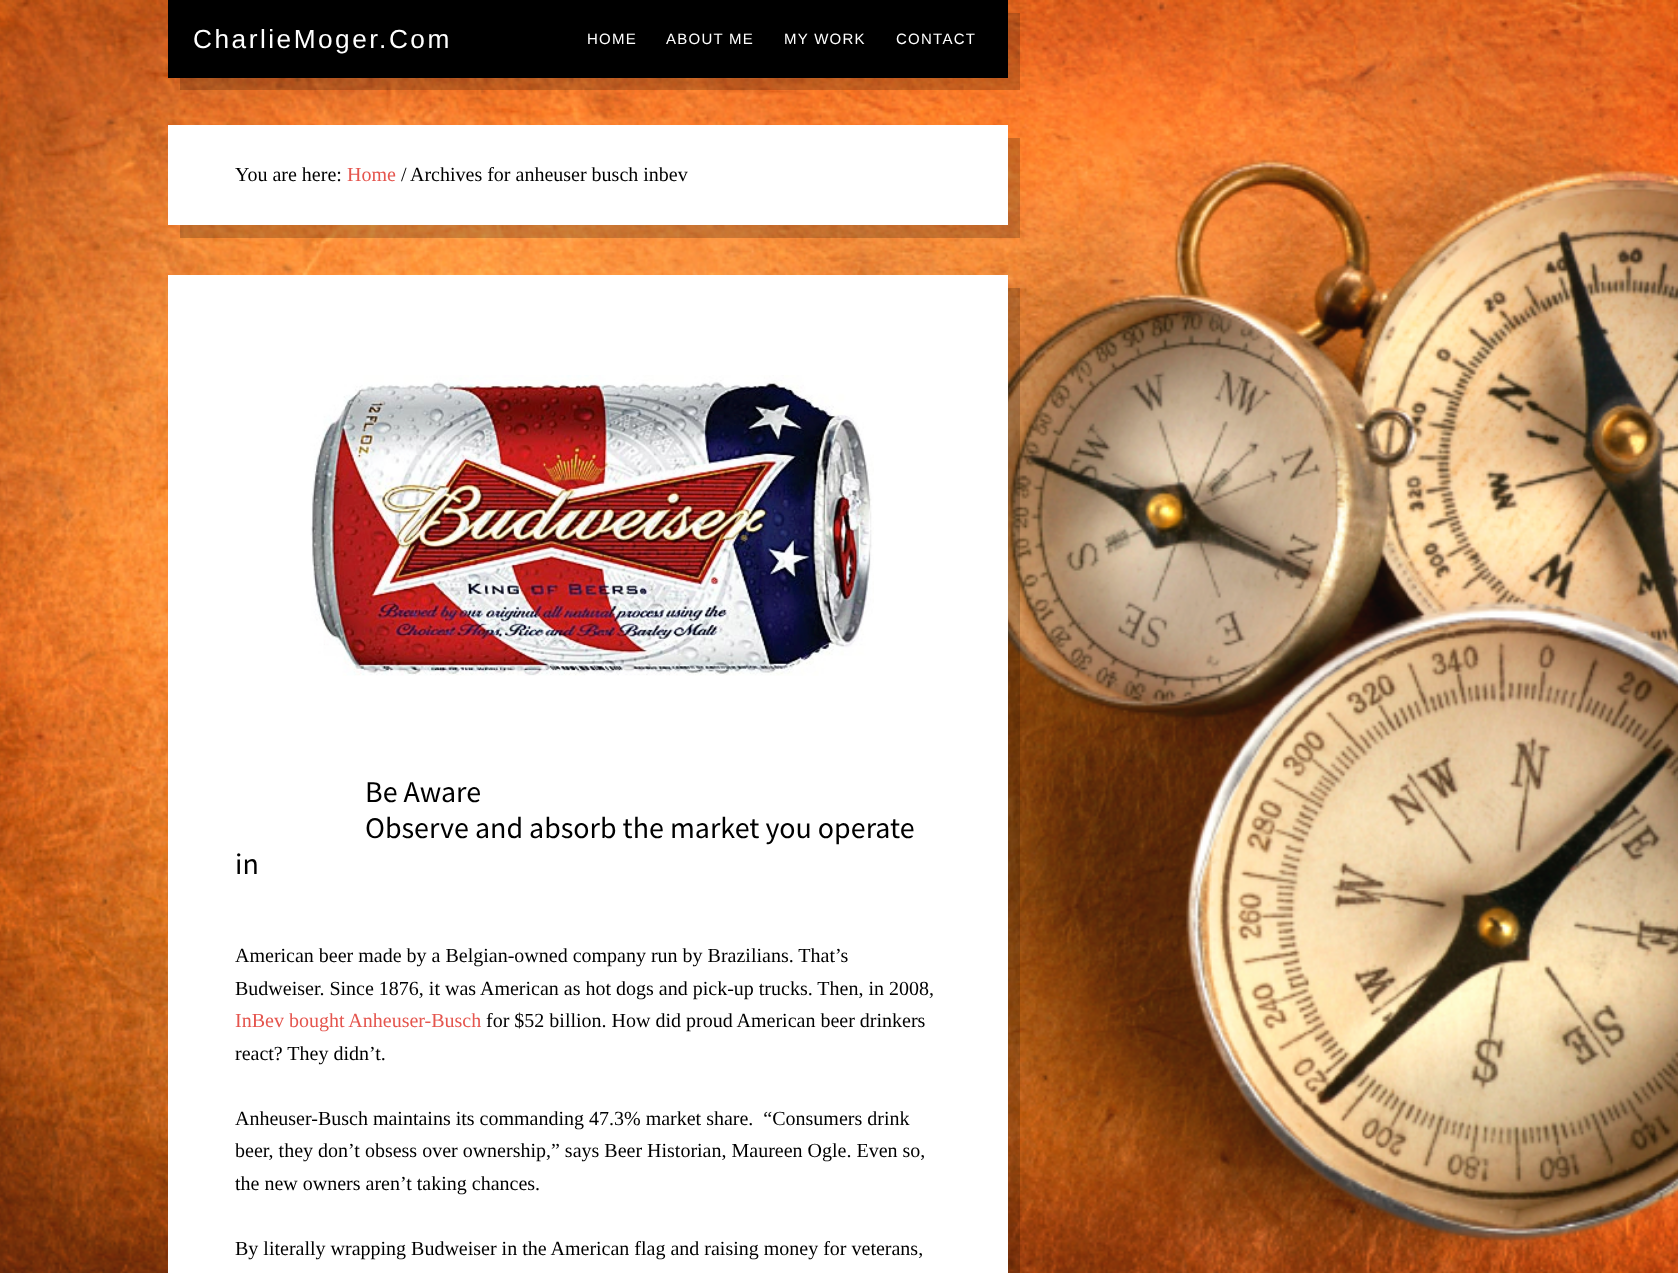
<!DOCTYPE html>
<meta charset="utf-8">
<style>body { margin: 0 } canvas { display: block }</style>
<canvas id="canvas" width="1678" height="1273"></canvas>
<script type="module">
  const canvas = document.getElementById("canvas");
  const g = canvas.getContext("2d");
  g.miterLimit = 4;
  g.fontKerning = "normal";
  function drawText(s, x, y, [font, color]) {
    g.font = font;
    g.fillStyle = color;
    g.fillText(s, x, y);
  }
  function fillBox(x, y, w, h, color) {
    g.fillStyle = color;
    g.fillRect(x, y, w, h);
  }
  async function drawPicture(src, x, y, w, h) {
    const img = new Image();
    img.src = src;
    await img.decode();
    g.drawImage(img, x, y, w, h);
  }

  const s1 = ["26.25px Liberation Sans", "#FFFFFF"];
  const s2 = ["15px Liberation Sans", "#FFFFFF"];
  const s3 = ["20px Liberation Serif", "#000000"];
  const s4 = ["20px Liberation Serif", "#E5554E"];
  const s5 = ["30px Source Sans Pro", "#000000"];

  fillBox(0, 0, 1678, 1273, "#FFFFFF");
  await drawPicture("pic1.png", 0, 0, 1678, 1273);
  g.fillStyle = "rgba(0, 0, 0, 0.2)";
  g.beginPath();
  g.moveTo(180, 78);
  g.lineTo(180, 90);
  g.lineTo(1020, 90);
  g.lineTo(1020, 13);
  g.lineTo(1008, 13);
  g.lineTo(1008, 78);
  g.closePath();
  g.fill();
  fillBox(168, 0, 840, 78, "#000000");
  g.letterSpacing = "2.5px";
  drawText("CharlieMoger.Com", 193, 48, s1);
  g.letterSpacing = "1.25px";
  drawText("HOME", 587, 44, s2);
  drawText("ABOUT ME", 666, 44, s2);
  drawText("MY WORK", 784, 44, s2);
  drawText("CONTACT", 896, 44, s2);
  g.fillStyle = "rgba(0, 0, 0, 0.2)";
  g.beginPath();
  g.moveTo(180, 225);
  g.lineTo(180, 238);
  g.lineTo(1020, 238);
  g.lineTo(1020, 138);
  g.lineTo(1008, 138);
  g.lineTo(1008, 225);
  g.closePath();
  g.fill();
  fillBox(168, 125, 840, 100, "#FFFFFF");
  g.letterSpacing = "0px";
  drawText("You are here:", 235, 181, s3);
  drawText("Home", 347, 181, s4);
  drawText("/", 401, 181, s3);
  drawText("Archives for anheuser busch inbev", 410, 181, s3);
  g.fillStyle = "rgba(0, 0, 0, 0.2)";
  g.beginPath();
  g.moveTo(180, 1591);
  g.lineTo(180, 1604);
  g.lineTo(1020, 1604);
  g.lineTo(1020, 288);
  g.lineTo(1008, 288);
  g.lineTo(1008, 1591);
  g.closePath();
  g.fill();
  fillBox(168, 275, 840, 998, "#FFFFFF");
  await drawPicture("pic2.png", 310, 375, 564, 301);
  drawText("Be Aware", 365, 802, s5);
  drawText("Observe and absorb the market you operate", 365, 838, s5);
  drawText("in", 235, 874, s5);
  drawText("American beer made by a Belgian-owned company run by Brazilians. That’s", 235, 962, s3);
  drawText("Budweiser. Since 1876, it was American as hot dogs and pick-up trucks. Then, in 2008,", 235, 995, s3);
  drawText("InBev bought Anheuser-Busch", 235, 1027, s4);
  drawText("for $52 billion. How did proud American beer drinkers", 486, 1027, s3);
  drawText("react? They didn’t.", 235, 1060, s3);
  drawText("Anheuser-Busch maintains its commanding 47.3% market share.  “Consumers drink", 235, 1125, s3);
  drawText("beer, they don’t obsess over ownership,” says Beer Historian, Maureen Ogle. Even so,", 235, 1157, s3);
  drawText("the new owners aren’t taking chances.", 235, 1190, s3);
  drawText("By literally wrapping Budweiser in the American flag and raising money for veterans,", 235, 1255, s3);
</script>
